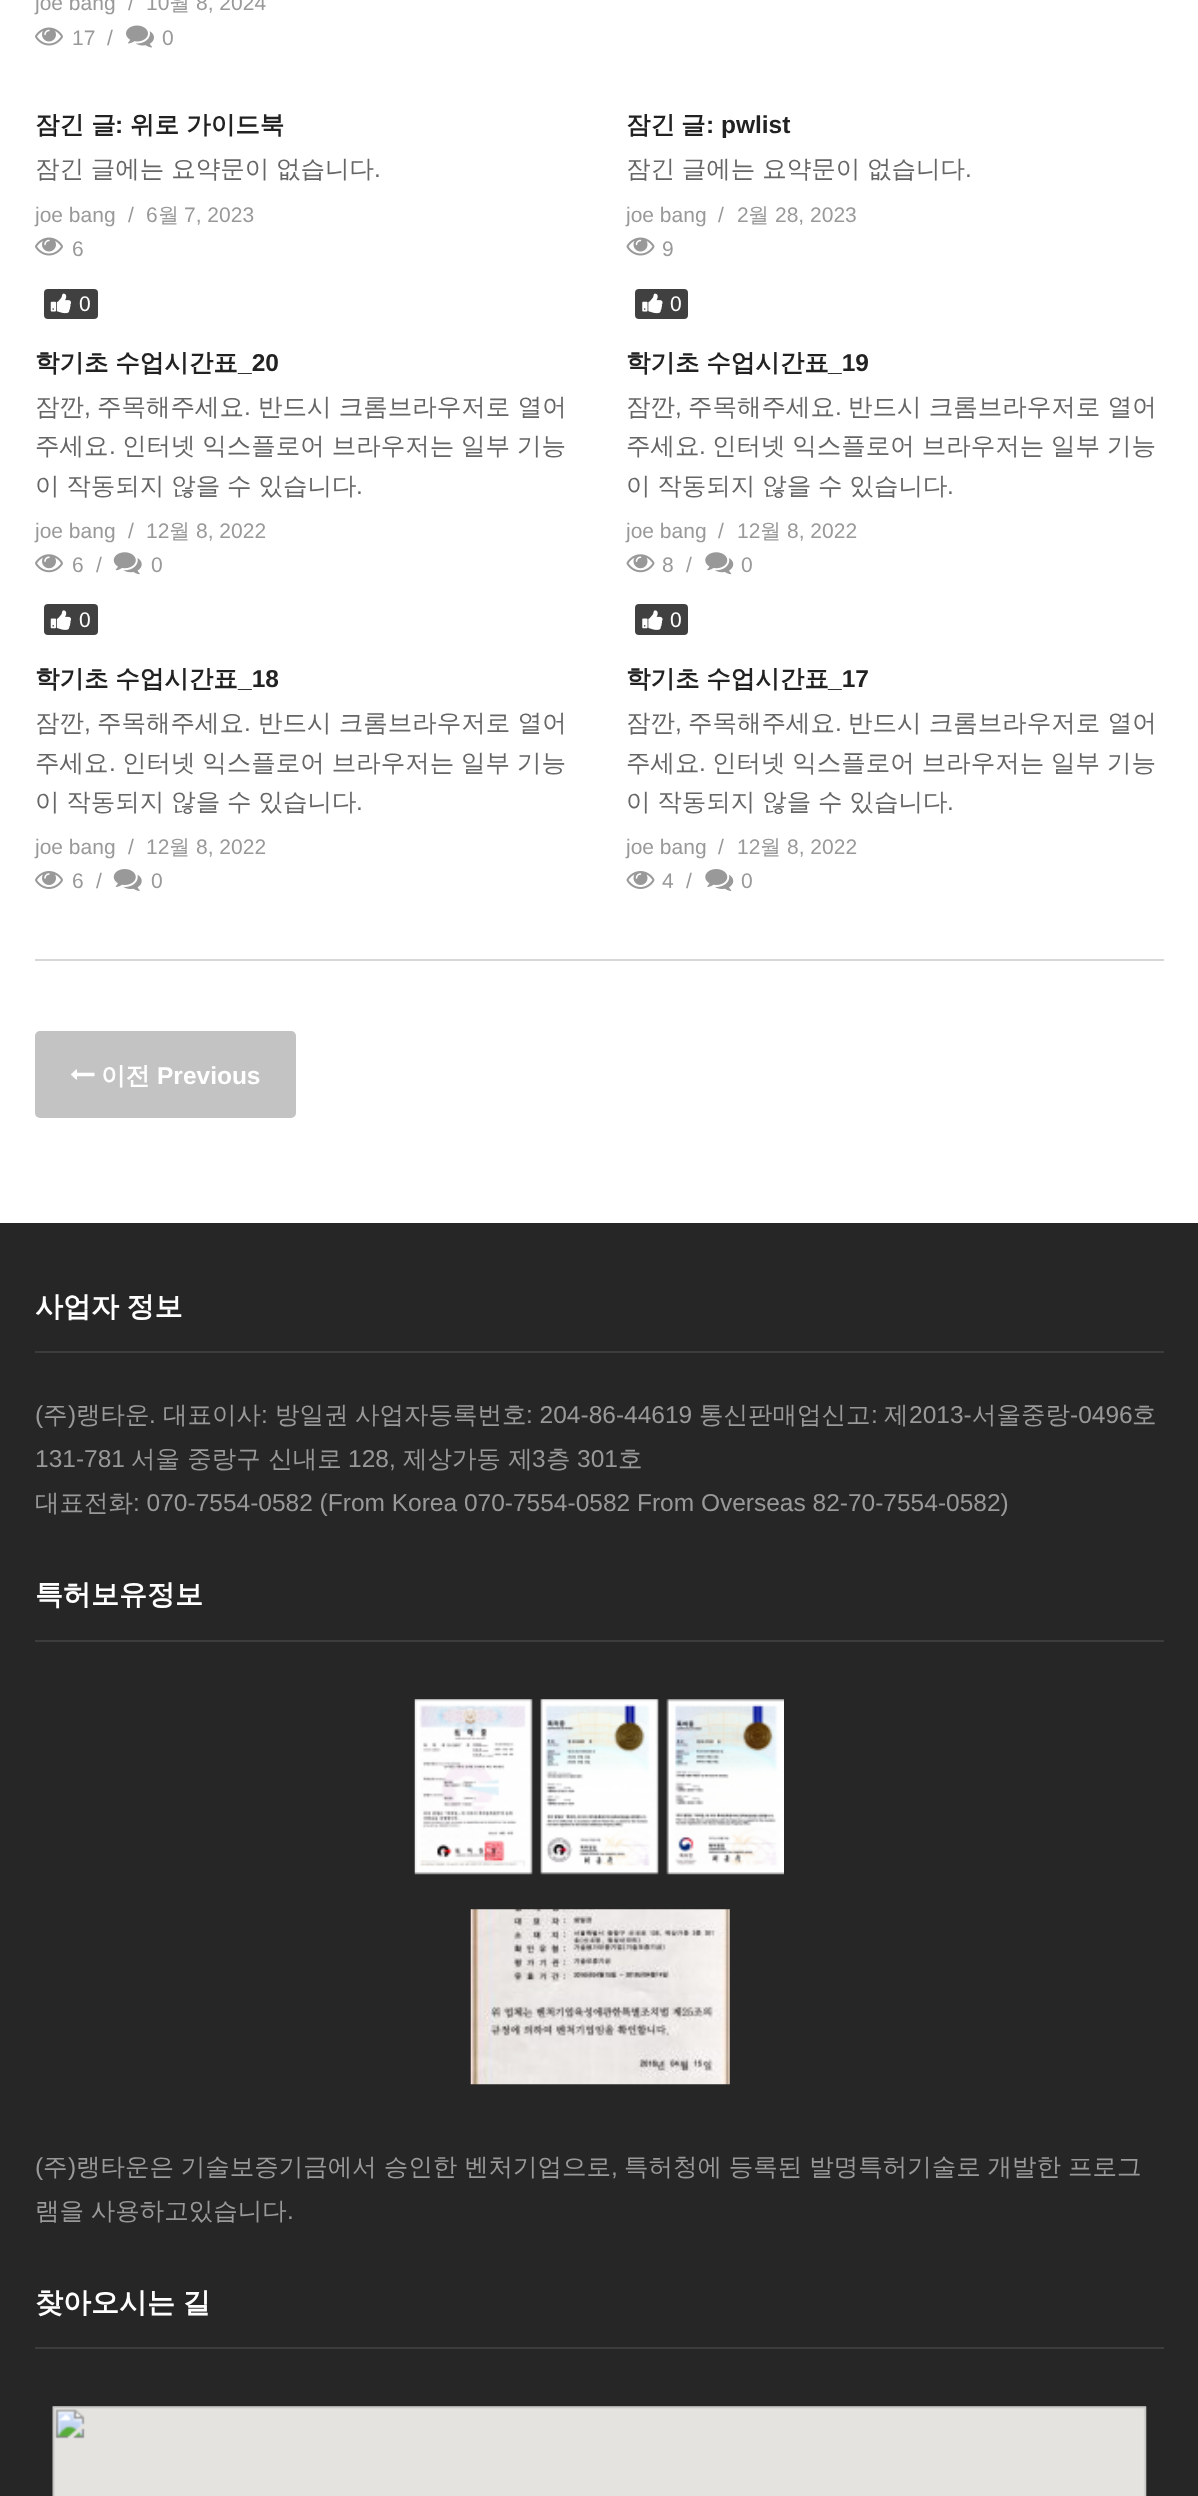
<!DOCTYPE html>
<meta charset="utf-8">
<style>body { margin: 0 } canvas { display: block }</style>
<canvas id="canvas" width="1198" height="2496"></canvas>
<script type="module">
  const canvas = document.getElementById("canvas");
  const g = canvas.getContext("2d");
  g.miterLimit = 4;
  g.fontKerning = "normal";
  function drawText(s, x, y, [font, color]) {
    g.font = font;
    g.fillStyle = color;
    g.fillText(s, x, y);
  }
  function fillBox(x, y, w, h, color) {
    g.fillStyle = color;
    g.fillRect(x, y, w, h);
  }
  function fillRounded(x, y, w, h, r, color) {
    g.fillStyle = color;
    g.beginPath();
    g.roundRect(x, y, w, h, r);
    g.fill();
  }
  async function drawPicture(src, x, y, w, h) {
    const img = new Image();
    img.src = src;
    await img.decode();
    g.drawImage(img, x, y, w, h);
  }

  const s1 = ["21px Liberation Sans", "#999999"];
  const s2 = ["500 21px WenQuanYi Zen Hei", "#999999"];
  const s3 = ["bold 24.5px WenQuanYi Zen Hei", "#222222"];
  const s4 = ["bold 24.5px Liberation Sans", "#222222"];
  const s5 = ["500 24.5px WenQuanYi Zen Hei", "#666666"];
  const s6 = ["24.5px Liberation Sans", "#666666"];
  const s7 = ["21px Liberation Sans", "#FFFFFF"];
  const s8 = ["bold 24.5px WenQuanYi Zen Hei", "#FFFFFF"];
  const s9 = ["bold 24.5px Liberation Sans", "#FFFFFF"];
  const s10 = ["bold 28px WenQuanYi Zen Hei", "#FFFFFF"];
  const s11 = ["24.5px Liberation Sans", "#999999"];
  const s12 = ["500 24.5px WenQuanYi Zen Hei", "#999999"];

  fillBox(0, 0, 1198, 2496, "#FFFFFF");
  drawText("joe bang", 35, 10, s1);
  drawText("/", 128, 10, s1);
  drawText("10", 146, 10, s1);
  drawText("월", 169, 10, s2);
  drawText("8, 2024", 196, 10, s1);
  await drawPicture("pic1.png", 35, 27, 28, 19);
  drawText("17", 72, 45, s1);
  drawText("/", 107, 45, s1);
  await drawPicture("pic2.png", 126, 25, 28, 23);
  drawText("0", 162, 45, s1);
  drawText("잠긴 글", 35, 133, s3);
  drawText(":", 115, 133, s4);
  drawText("위로 가이드북", 130, 133, s3);
  g.wordSpacing = "-0.5px";
  drawText("잠긴 글에는 요약문이 없습니다", 35, 177, s5);
  g.wordSpacing = "0px";
  drawText(".", 374, 177, s6);
  drawText("joe bang", 35, 222, s1);
  drawText("/", 128, 222, s1);
  drawText("6", 146, 222, s1);
  drawText("월", 158, 222, s2);
  drawText("7, 2023", 184, 222, s1);
  await drawPicture("pic1.png", 35, 237, 28, 19);
  drawText("6", 72, 256, s1);
  drawText("잠긴", 626, 133, s3);
  drawText("글", 681, 133, s3);
  drawText(": pwlist", 706, 133, s4);
  g.wordSpacing = "-0.5px";
  drawText("잠긴 글에는 요약문이 없습니다", 626, 177, s5);
  g.wordSpacing = "0px";
  drawText(".", 965, 177, s6);
  drawText("joe bang", 626, 222, s1);
  drawText("/", 718, 222, s1);
  drawText("2", 737, 222, s1);
  drawText("월", 748, 222, s2);
  drawText("28, 2023", 775, 222, s1);
  await drawPicture("pic3.png", 626, 237, 29, 19);
  drawText("9", 662, 256, s1);
  fillRounded(44, 289, 54, 30, 4, "#404040");
  await drawPicture("pic4.png", 50, 293, 21, 21);
  drawText("0", 79, 311, s7);
  g.wordSpacing = "-0.5px";
  drawText("학기초 수업시간표", 35, 371, s3);
  g.wordSpacing = "0px";
  drawText("_20", 238, 371, s4);
  drawText("잠깐", 35, 415, s5);
  drawText(",", 84, 415, s6);
  drawText("주목해주세요", 97, 415, s5);
  drawText(".", 244, 415, s6);
  drawText("반드시 크롬브라우저로 열어", 258, 415, s5);
  drawText("주세요", 35, 454, s5);
  drawText(".", 109, 454, s6);
  g.wordSpacing = "-0.5px";
  drawText("인터넷 익스플로어 브라우저는 일부 기능", 122, 454, s5);
  drawText("이 작동되지 않을 수 있습니다", 35, 494, s5);
  g.wordSpacing = "0px";
  drawText(".", 356, 494, s6);
  drawText("joe bang", 35, 538, s1);
  drawText("/", 128, 538, s1);
  drawText("12", 146, 538, s1);
  drawText("월", 169, 538, s2);
  drawText("8, 2022", 196, 538, s1);
  await drawPicture("pic5.png", 35, 554, 28, 19);
  drawText("6", 72, 572, s1);
  drawText("/", 96, 572, s1);
  await drawPicture("pic6.png", 113, 552, 29, 23);
  drawText("0", 151, 572, s1);
  fillRounded(635, 289, 53, 30, 4, "#404040");
  await drawPicture("pic7.png", 642, 293, 21, 21);
  drawText("0", 670, 311, s7);
  g.wordSpacing = "-0.5px";
  drawText("학기초 수업시간표", 626, 371, s3);
  g.wordSpacing = "0px";
  drawText("_19", 828, 371, s4);
  drawText("잠깐", 626, 415, s5);
  drawText(",", 675, 415, s6);
  drawText("주목해주세요", 688, 415, s5);
  drawText(".", 835, 415, s6);
  drawText("반드시 크롬브라우저로 열어", 848, 415, s5);
  drawText("주세요", 626, 454, s5);
  drawText(".", 699, 454, s6);
  g.wordSpacing = "-0.5px";
  drawText("인터넷 익스플로어 브라우저는 일부 기능", 712, 454, s5);
  drawText("이 작동되지 않을 수 있습니다", 626, 494, s5);
  g.wordSpacing = "0px";
  drawText(".", 947, 494, s6);
  drawText("joe bang", 626, 538, s1);
  drawText("/", 718, 538, s1);
  drawText("12", 737, 538, s1);
  drawText("월", 760, 538, s2);
  drawText("8, 2022", 787, 538, s1);
  await drawPicture("pic8.png", 626, 554, 29, 19);
  drawText("8", 662, 572, s1);
  drawText("/", 686, 572, s1);
  await drawPicture("pic9.png", 705, 552, 29, 23);
  drawText("0", 741, 572, s1);
  fillRounded(44, 604, 54, 31, 4, "#404040");
  await drawPicture("pic10.png", 50, 610, 22, 20);
  drawText("0", 79, 627, s7);
  g.wordSpacing = "-0.5px";
  drawText("학기초 수업시간표", 35, 687, s3);
  g.wordSpacing = "0px";
  drawText("_18", 238, 687, s4);
  drawText("잠깐", 35, 731, s5);
  drawText(",", 84, 731, s6);
  drawText("주목해주세요", 97, 731, s5);
  drawText(".", 244, 731, s6);
  drawText("반드시 크롬브라우저로 열어", 258, 731, s5);
  drawText("주세요", 35, 771, s5);
  drawText(".", 109, 771, s6);
  g.wordSpacing = "-0.5px";
  drawText("인터넷 익스플로어 브라우저는 일부 기능", 122, 771, s5);
  drawText("이 작동되지 않을 수 있습니다", 35, 810, s5);
  g.wordSpacing = "0px";
  drawText(".", 356, 810, s6);
  drawText("joe bang", 35, 854, s1);
  drawText("/", 128, 854, s1);
  drawText("12", 146, 854, s1);
  drawText("월", 169, 854, s2);
  drawText("8, 2022", 196, 854, s1);
  await drawPicture("pic11.png", 35, 871, 28, 18);
  drawText("6", 72, 888, s1);
  drawText("/", 96, 888, s1);
  await drawPicture("pic12.png", 113, 869, 29, 22);
  drawText("0", 151, 888, s1);
  fillRounded(635, 604, 53, 31, 4, "#404040");
  await drawPicture("pic13.png", 642, 610, 21, 20);
  drawText("0", 670, 627, s7);
  g.wordSpacing = "-0.5px";
  drawText("학기초 수업시간표", 626, 687, s3);
  g.wordSpacing = "0px";
  drawText("_17", 828, 687, s4);
  drawText("잠깐", 626, 731, s5);
  drawText(",", 675, 731, s6);
  drawText("주목해주세요", 688, 731, s5);
  drawText(".", 835, 731, s6);
  drawText("반드시 크롬브라우저로 열어", 848, 731, s5);
  drawText("주세요", 626, 771, s5);
  drawText(".", 699, 771, s6);
  g.wordSpacing = "-0.5px";
  drawText("인터넷 익스플로어 브라우저는 일부 기능", 712, 771, s5);
  drawText("이 작동되지 않을 수 있습니다", 626, 810, s5);
  g.wordSpacing = "0px";
  drawText(".", 947, 810, s6);
  drawText("joe bang", 626, 854, s1);
  drawText("/", 718, 854, s1);
  drawText("12", 737, 854, s1);
  drawText("월", 760, 854, s2);
  drawText("8, 2022", 787, 854, s1);
  await drawPicture("pic14.png", 626, 871, 29, 18);
  drawText("4", 662, 888, s1);
  drawText("/", 686, 888, s1);
  await drawPicture("pic15.png", 705, 869, 29, 22);
  drawText("0", 741, 888, s1);
  fillBox(35, 959, 1129, 2, "#D7D7D7");
  fillRounded(35, 1031, 261, 87, 5, "#C3C3C3");
  await drawPicture("pic16.png", 71, 1069, 24, 11);
  drawText("이전", 101, 1084, s8);
  drawText("Previous", 157, 1084, s9);
  fillBox(0, 1223, 1198, 1273, "#262626");
  fillBox(35, 1351, 1129, 2, "#3C3C3C");
  g.wordSpacing = "-1px";
  drawText("사업자 정보", 35, 1316, s10);
  g.wordSpacing = "0px";
  drawText("(", 35, 1423, s11);
  drawText("주", 43, 1423, s12);
  drawText(")", 68, 1423, s11);
  drawText("랭타운", 76, 1423, s12);
  drawText(".", 149, 1423, s11);
  drawText("대표이사", 163, 1423, s12);
  drawText(":", 261, 1423, s11);
  drawText("방일권", 275, 1423, s12);
  drawText("사업자등록번호", 355, 1423, s12);
  drawText(": 204-86-44619", 526, 1423, s11);
  drawText("통신판매업신고", 699, 1423, s12);
  drawText(":", 871, 1423, s11);
  drawText("제", 884, 1423, s12);
  drawText("2013-", 909, 1423, s11);
  drawText("서울중랑", 972, 1423, s12);
  drawText("-0496", 1070, 1423, s11);
  drawText("호", 1132, 1423, s12);
  drawText("131-781", 35, 1467, s11);
  drawText("서울 중랑구 신내로", 131, 1467, s12);
  drawText("128,", 348, 1467, s11);
  drawText("제상가동 제", 403, 1467, s12);
  drawText("3", 532, 1467, s11);
  drawText("층", 546, 1467, s12);
  drawText("301", 577, 1467, s11);
  drawText("호", 618, 1467, s12);
  drawText("대표전화", 35, 1511, s12);
  drawText(": 070-7554-0582 (From Korea 070-7554-0582 From Overseas 82-70-7554-0582)", 133, 1511, s11);
  fillBox(35, 1640, 1129, 2, "#3C3C3C");
  drawText("특허보유정보", 35, 1604, s10);
  await drawPicture("pic17.png", 414, 1699, 370, 176);
  await drawPicture("pic18.png", 470, 1909, 260, 176);
  drawText("(", 35, 2175, s11);
  drawText("주", 43, 2175, s12);
  drawText(")", 68, 2175, s11);
  g.wordSpacing = "-0.5px";
  drawText("랭타운은 기술보증기금에서 승인한 벤처기업으로", 76, 2175, s12);
  g.wordSpacing = "0px";
  drawText(",", 611, 2175, s11);
  g.wordSpacing = "-0.5px";
  drawText("특허청에 등록된 발명특허기술로 개발한 프로그", 624, 2175, s12);
  drawText("램을 사용하고있습니다", 35, 2219, s12);
  g.wordSpacing = "0px";
  drawText(".", 287, 2219, s11);
  fillBox(35, 2347, 1129, 2, "#3C3C3C");
  g.wordSpacing = "-1px";
  drawText("찾아오시는 길", 35, 2312, s10);
  await drawPicture("pic19.png", 52, 2406, 1095, 90);
</script>
